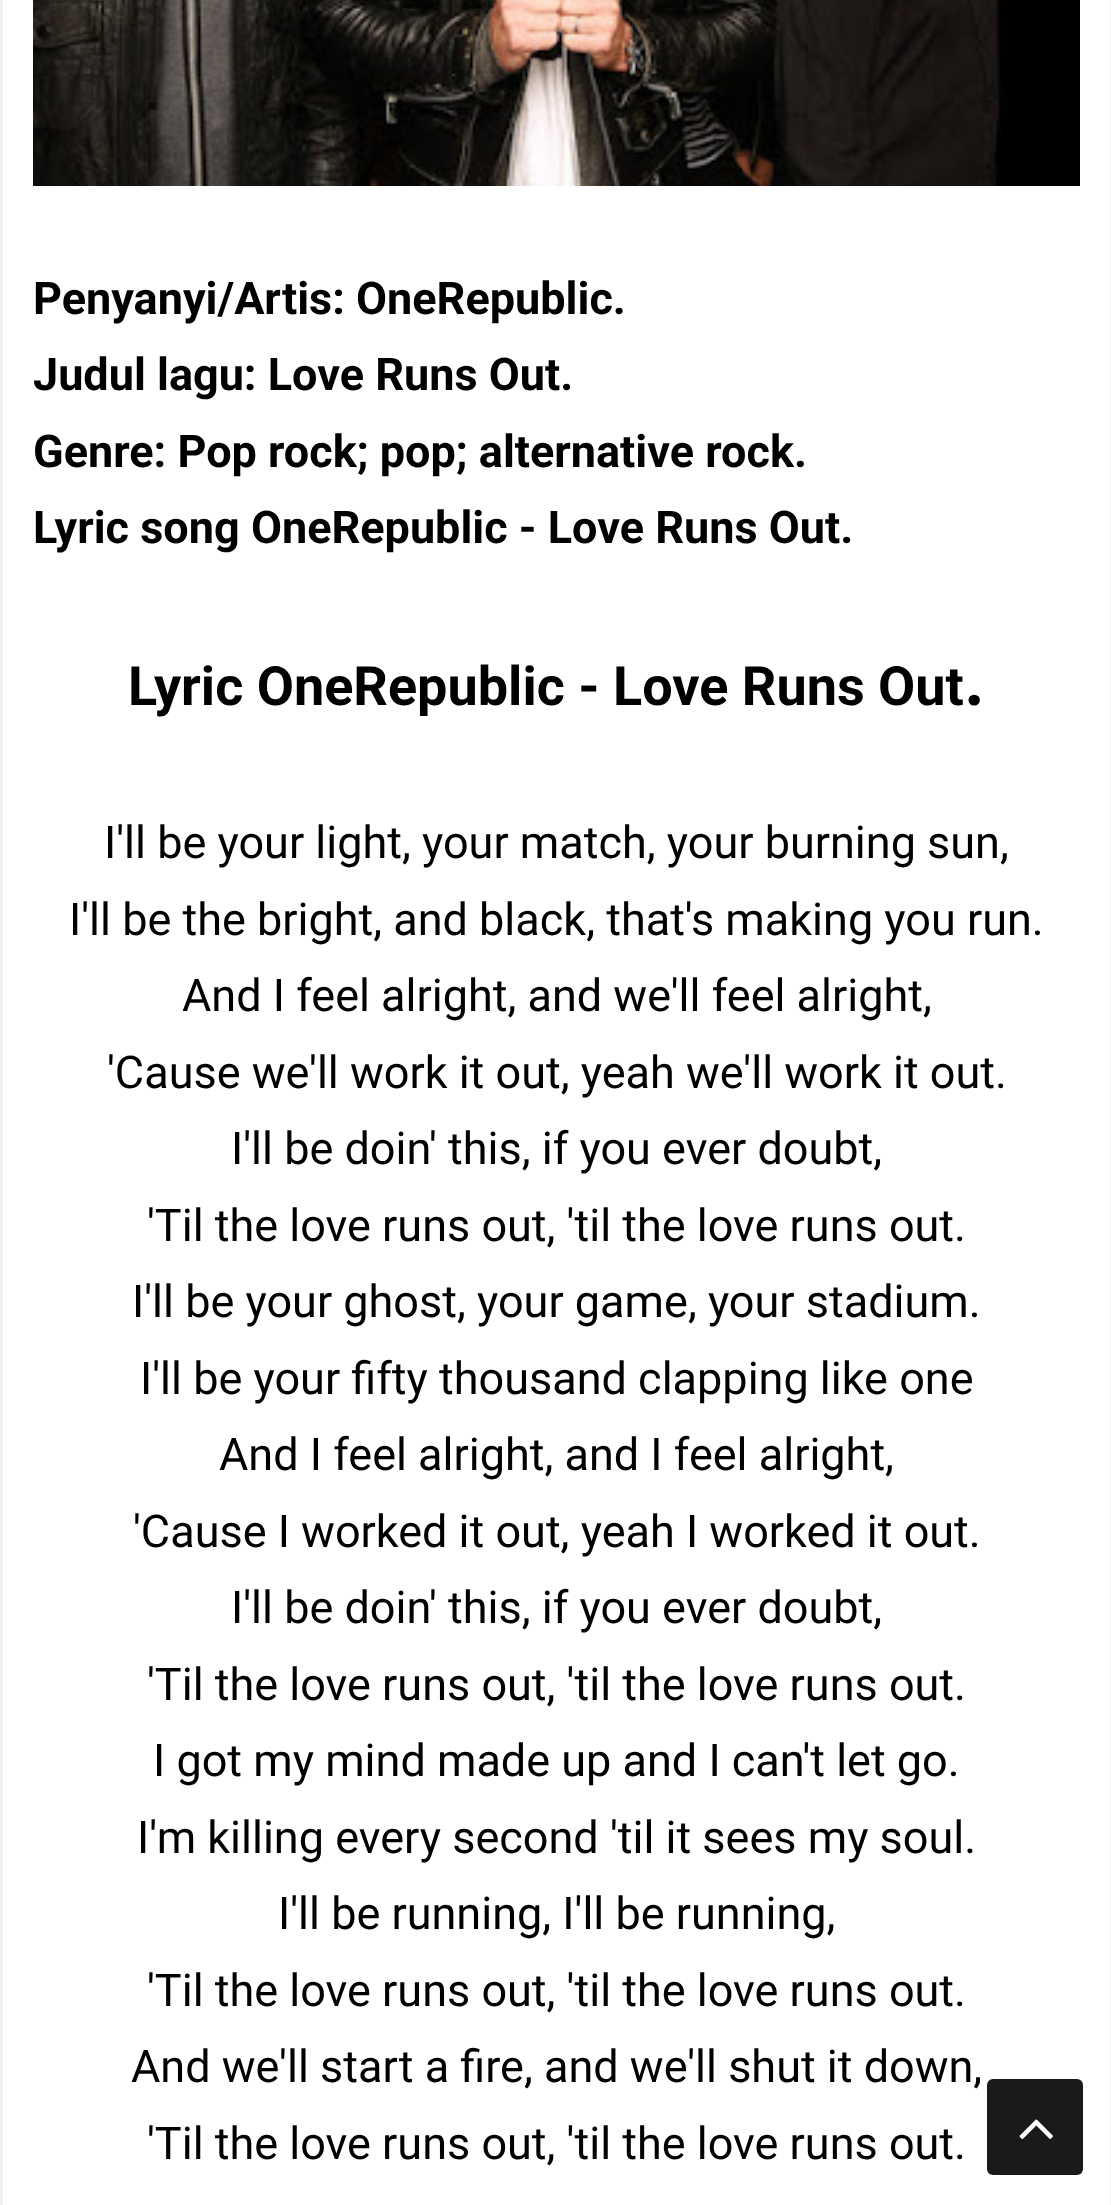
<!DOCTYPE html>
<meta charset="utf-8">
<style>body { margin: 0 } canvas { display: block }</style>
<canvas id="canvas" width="1111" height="2205"></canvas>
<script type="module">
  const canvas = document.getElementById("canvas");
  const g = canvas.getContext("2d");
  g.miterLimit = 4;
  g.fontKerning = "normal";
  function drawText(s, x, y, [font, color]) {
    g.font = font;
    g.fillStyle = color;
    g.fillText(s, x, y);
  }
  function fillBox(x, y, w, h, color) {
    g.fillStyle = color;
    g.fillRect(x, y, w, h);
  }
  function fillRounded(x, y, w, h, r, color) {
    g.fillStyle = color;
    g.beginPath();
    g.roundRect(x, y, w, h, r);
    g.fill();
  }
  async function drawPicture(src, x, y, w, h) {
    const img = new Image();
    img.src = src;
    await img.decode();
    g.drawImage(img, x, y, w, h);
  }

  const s1 = ["bold 45px Roboto", "#000000"];
  const s2 = ["bold 54px Roboto", "#000000"];
  const s3 = ["bold 72px Roboto", "#000000"];
  const s4 = ["45px Roboto", "#000000"];

  fillBox(0, 0, 1111, 2205, "#FFFFFF");
  fillBox(1110, 0, 1, 2205, "#F2F2F2");
  fillBox(0, 0, 3, 2205, "#F2F2F2");
  await drawPicture("pic1.png", 33, 0, 1047, 186);
  drawText("Penyanyi/Artis: OneRepublic.", 33, 314, s1);
  drawText("Judul lagu: Love Runs Out.", 33, 390, s1);
  drawText("Genre: Pop rock; pop; alternative rock.", 33, 467, s1);
  drawText("Lyric song OneRepublic - Love Runs Out.", 33, 543, s1);
  drawText("Lyric OneRepublic - Love Runs Out", 128, 705, s2);
  drawText(".", 964, 705, s3);
  drawText("I'll be your light, your match, your burning sun,", 104, 858, s4);
  drawText("I'll be the bright, and black, that's making you run.", 69, 935, s4);
  drawText("And I feel alright, and we'll feel alright,", 182, 1011, s4);
  drawText("'Cause we'll work it out, yeah we'll work it out.", 107, 1088, s4);
  drawText("I'll be doin' this, if you ever doubt,", 231, 1164, s4);
  drawText("'Til the love runs out, 'til the love runs out.", 147, 1241, s4);
  drawText("I'll be your ghost, your game, your stadium.", 132, 1317, s4);
  drawText("I'll be your fifty thousand clapping like one", 140, 1394, s4);
  drawText("And I feel alright, and I feel alright,", 219, 1470, s4);
  drawText("'Cause I worked it out, yeah I worked it out.", 133, 1547, s4);
  drawText("I'll be doin' this, if you ever doubt,", 231, 1623, s4);
  drawText("'Til the love runs out, 'til the love runs out.", 147, 1700, s4);
  drawText("I got my mind made up and I can't let go.", 153, 1776, s4);
  drawText("I'm killing every second 'til it sees my soul.", 137, 1853, s4);
  drawText("I'll be running, I'll be running,", 278, 1929, s4);
  drawText("'Til the love runs out, 'til the love runs out.", 147, 2006, s4);
  drawText("And we'll start a fire, and we'll shut it down,", 131, 2082, s4);
  drawText("'Til the love runs out, 'til the love runs out.", 147, 2159, s4);
  fillRounded(987, 2079, 96, 96, 6, "#1A1A1A");
  await drawPicture("pic2.png", 1019, 2119, 34, 20);
</script>
